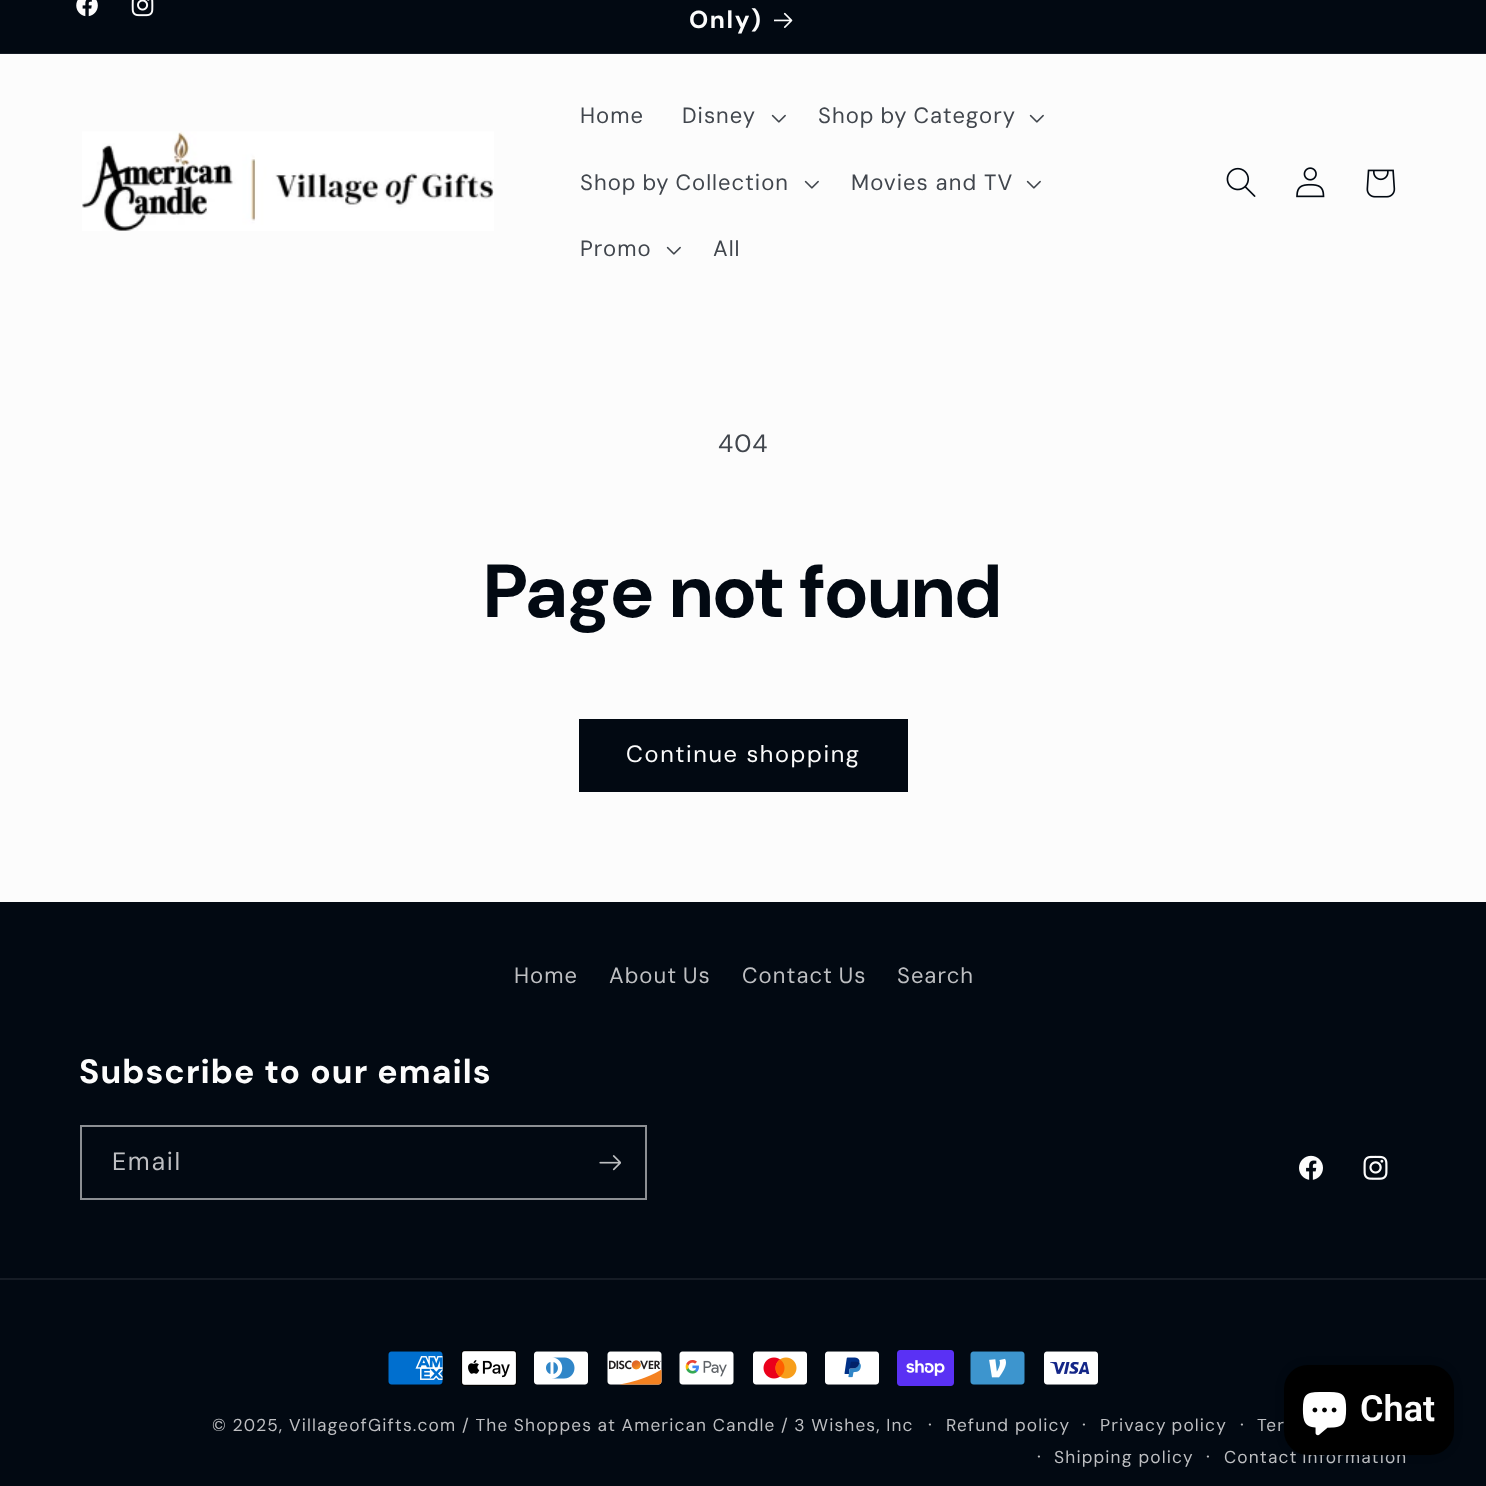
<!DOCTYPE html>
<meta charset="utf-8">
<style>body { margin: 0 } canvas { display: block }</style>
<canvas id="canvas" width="1486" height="1486"></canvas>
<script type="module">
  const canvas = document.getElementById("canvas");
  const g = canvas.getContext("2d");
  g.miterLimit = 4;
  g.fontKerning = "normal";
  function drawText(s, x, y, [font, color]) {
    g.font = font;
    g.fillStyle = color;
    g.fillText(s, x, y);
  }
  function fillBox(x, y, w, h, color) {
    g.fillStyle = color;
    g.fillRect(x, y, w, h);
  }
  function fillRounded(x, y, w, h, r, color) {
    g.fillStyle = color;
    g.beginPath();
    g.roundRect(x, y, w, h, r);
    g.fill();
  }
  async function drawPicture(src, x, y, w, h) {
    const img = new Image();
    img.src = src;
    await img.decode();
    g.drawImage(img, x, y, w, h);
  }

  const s1 = ["bold 24.5px 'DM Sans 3'", "#FCFCFC"];
  const s2 = ["22px 'DM Sans 3'", "#41464D"];
  const s3 = ["25px DM Sans", "#41464D"];
  const s4 = ["bold 75px DM Sans", "#020912"];
  const s5 = ["23.6px 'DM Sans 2'", "#FCFCFC"];
  const s6 = ["22px 'DM Sans 3'", "#BEBFC2"];
  const s7 = ["bold 33.75px 'DM Sans 2'", "#FCFCFC"];
  const s8 = ["25px 'DM Sans 3'", "#BEBFC2"];
  const s9 = ["17.3px 'DM Sans 3'", "#BEBFC2"];
  const s10 = ["19px 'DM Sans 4'", "#BEBFC2"];
  const s11 = ["600 36px Roboto", "#FCFCFC"];

  fillBox(0, 0, 1486, 1486, "#FCFCFC");
  fillBox(0, 0, 1486, 53, "#020912");
  fillBox(0, 53, 1486, 1, "#161C25");
  await drawPicture("pic1.png", 76, 0, 22, 17);
  await drawPicture("pic2.png", 131, 0, 23, 17);
  g.letterSpacing = "1.6px";
  drawText("Only)", 689, 28, s1);
  await drawPicture("pic3.png", 774, 12, 19, 16);
  await drawPicture("pic4.png", 82, 131, 412, 100);
  g.letterSpacing = "1px";
  drawText("Home", 580, 123, s2);
  drawText("Disney", 682, 123, s2);
  await drawPicture("pic5.png", 771, 114, 15, 9);
  g.wordSpacing = "-1px";
  drawText("Shop by Category", 818, 123, s2);
  await drawPicture("pic5.png", 1029, 114, 15, 9);
  drawText("Shop by Collection", 580, 190, s2);
  await drawPicture("pic5.png", 804, 180, 15, 9);
  g.wordSpacing = "0px";
  drawText("Movies and TV", 851, 190, s2);
  await drawPicture("pic5.png", 1026, 180, 15, 9);
  drawText("Promo", 580, 256, s2);
  await drawPicture("pic5.png", 666, 246, 15, 9);
  drawText("All", 713, 256, s2);
  await drawPicture("pic6.png", 1226, 167, 30, 30);
  await drawPicture("pic7.png", 1296, 167, 29, 31);
  await drawPicture("pic8.png", 1366, 169, 30, 29);
  drawText("404", 718, 452, s3);
  g.letterSpacing = "1.1px";
  drawText("Page not found", 484, 617, s4);
  fillBox(579, 719, 329, 73, "#020912");
  g.letterSpacing = "1.6px";
  drawText("Continue shopping", 626, 762, s5);
  fillBox(0, 902, 1486, 584, "#020912");
  g.letterSpacing = "1px";
  drawText("Home", 514, 983, s6);
  g.wordSpacing = "-1px";
  drawText("About Us", 609, 983, s6);
  drawText("Contact Us", 742, 983, s6);
  g.wordSpacing = "0px";
  drawText("Search", 897, 983, s6);
  g.letterSpacing = "1.1px";
  drawText("Subscribe to our emails", 79, 1083, s7);
  g.strokeStyle = "#8C8F93";
  g.lineWidth = 2;
  g.strokeRect(81, 1126, 565, 73);
  g.letterSpacing = "1.6px";
  drawText("Email", 112, 1170, s8);
  await drawPicture("pic9.png", 599, 1155, 22, 16);
  await drawPicture("pic10.png", 1299, 1155, 24, 25);
  await drawPicture("pic11.png", 1363, 1155, 25, 25);
  fillBox(0, 1278, 1486, 2, "#161C25");
  await drawPicture("pic12.png", 388, 1351, 55, 34);
  await drawPicture("pic13.png", 461, 1350, 56, 36);
  await drawPicture("pic14.png", 534, 1351, 54, 34);
  await drawPicture("pic15.png", 607, 1351, 55, 34);
  await drawPicture("pic16.png", 679, 1351, 55, 34);
  await drawPicture("pic17.png", 753, 1351, 54, 34);
  await drawPicture("pic18.png", 825, 1351, 54, 34);
  await drawPicture("pic19.png", 897, 1350, 57, 36);
  await drawPicture("pic20.png", 970, 1351, 55, 34);
  await drawPicture("pic21.png", 1044, 1351, 54, 34);
  g.letterSpacing = "1.1px";
  drawText("© 2025, VillageofGifts.com", 212, 1431, s9);
  g.wordSpacing = "-0.25px";
  drawText("/ The Shoppes at American Candle / 3 Wishes, Inc", 462, 1431, s9);
  g.wordSpacing = "0px";
  drawText("·", 928, 1431, s10);
  drawText("Refund policy", 946, 1431, s9);
  drawText("·", 1082, 1431, s10);
  g.wordSpacing = "-1px";
  drawText("Privacy policy", 1100, 1431, s9);
  g.wordSpacing = "0px";
  drawText("·", 1240, 1431, s10);
  drawText("Ter", 1257, 1431, s9);
  drawText("·", 1037, 1463, s10);
  drawText("Shipping policy", 1054, 1463, s9);
  drawText("·", 1206, 1463, s10);
  g.wordSpacing = "-1px";
  drawText("Contact information", 1224, 1463, s9);
  g.fillStyle = "rgba(0, 0, 0, 0.15)";
  g.filter = "blur(4px)";
  g.beginPath();
  g.roundRect(1284, 1365, 170, 90, 24);
  g.fill();
  g.filter = "none";
  fillRounded(1284, 1365, 170, 90, 24, "#000000");
  await drawPicture("pic22.png", 1302, 1392, 45, 44);
  g.letterSpacing = "0px";
  g.wordSpacing = "0px";
  drawText("Chat", 1360, 1421, s11);
</script>
